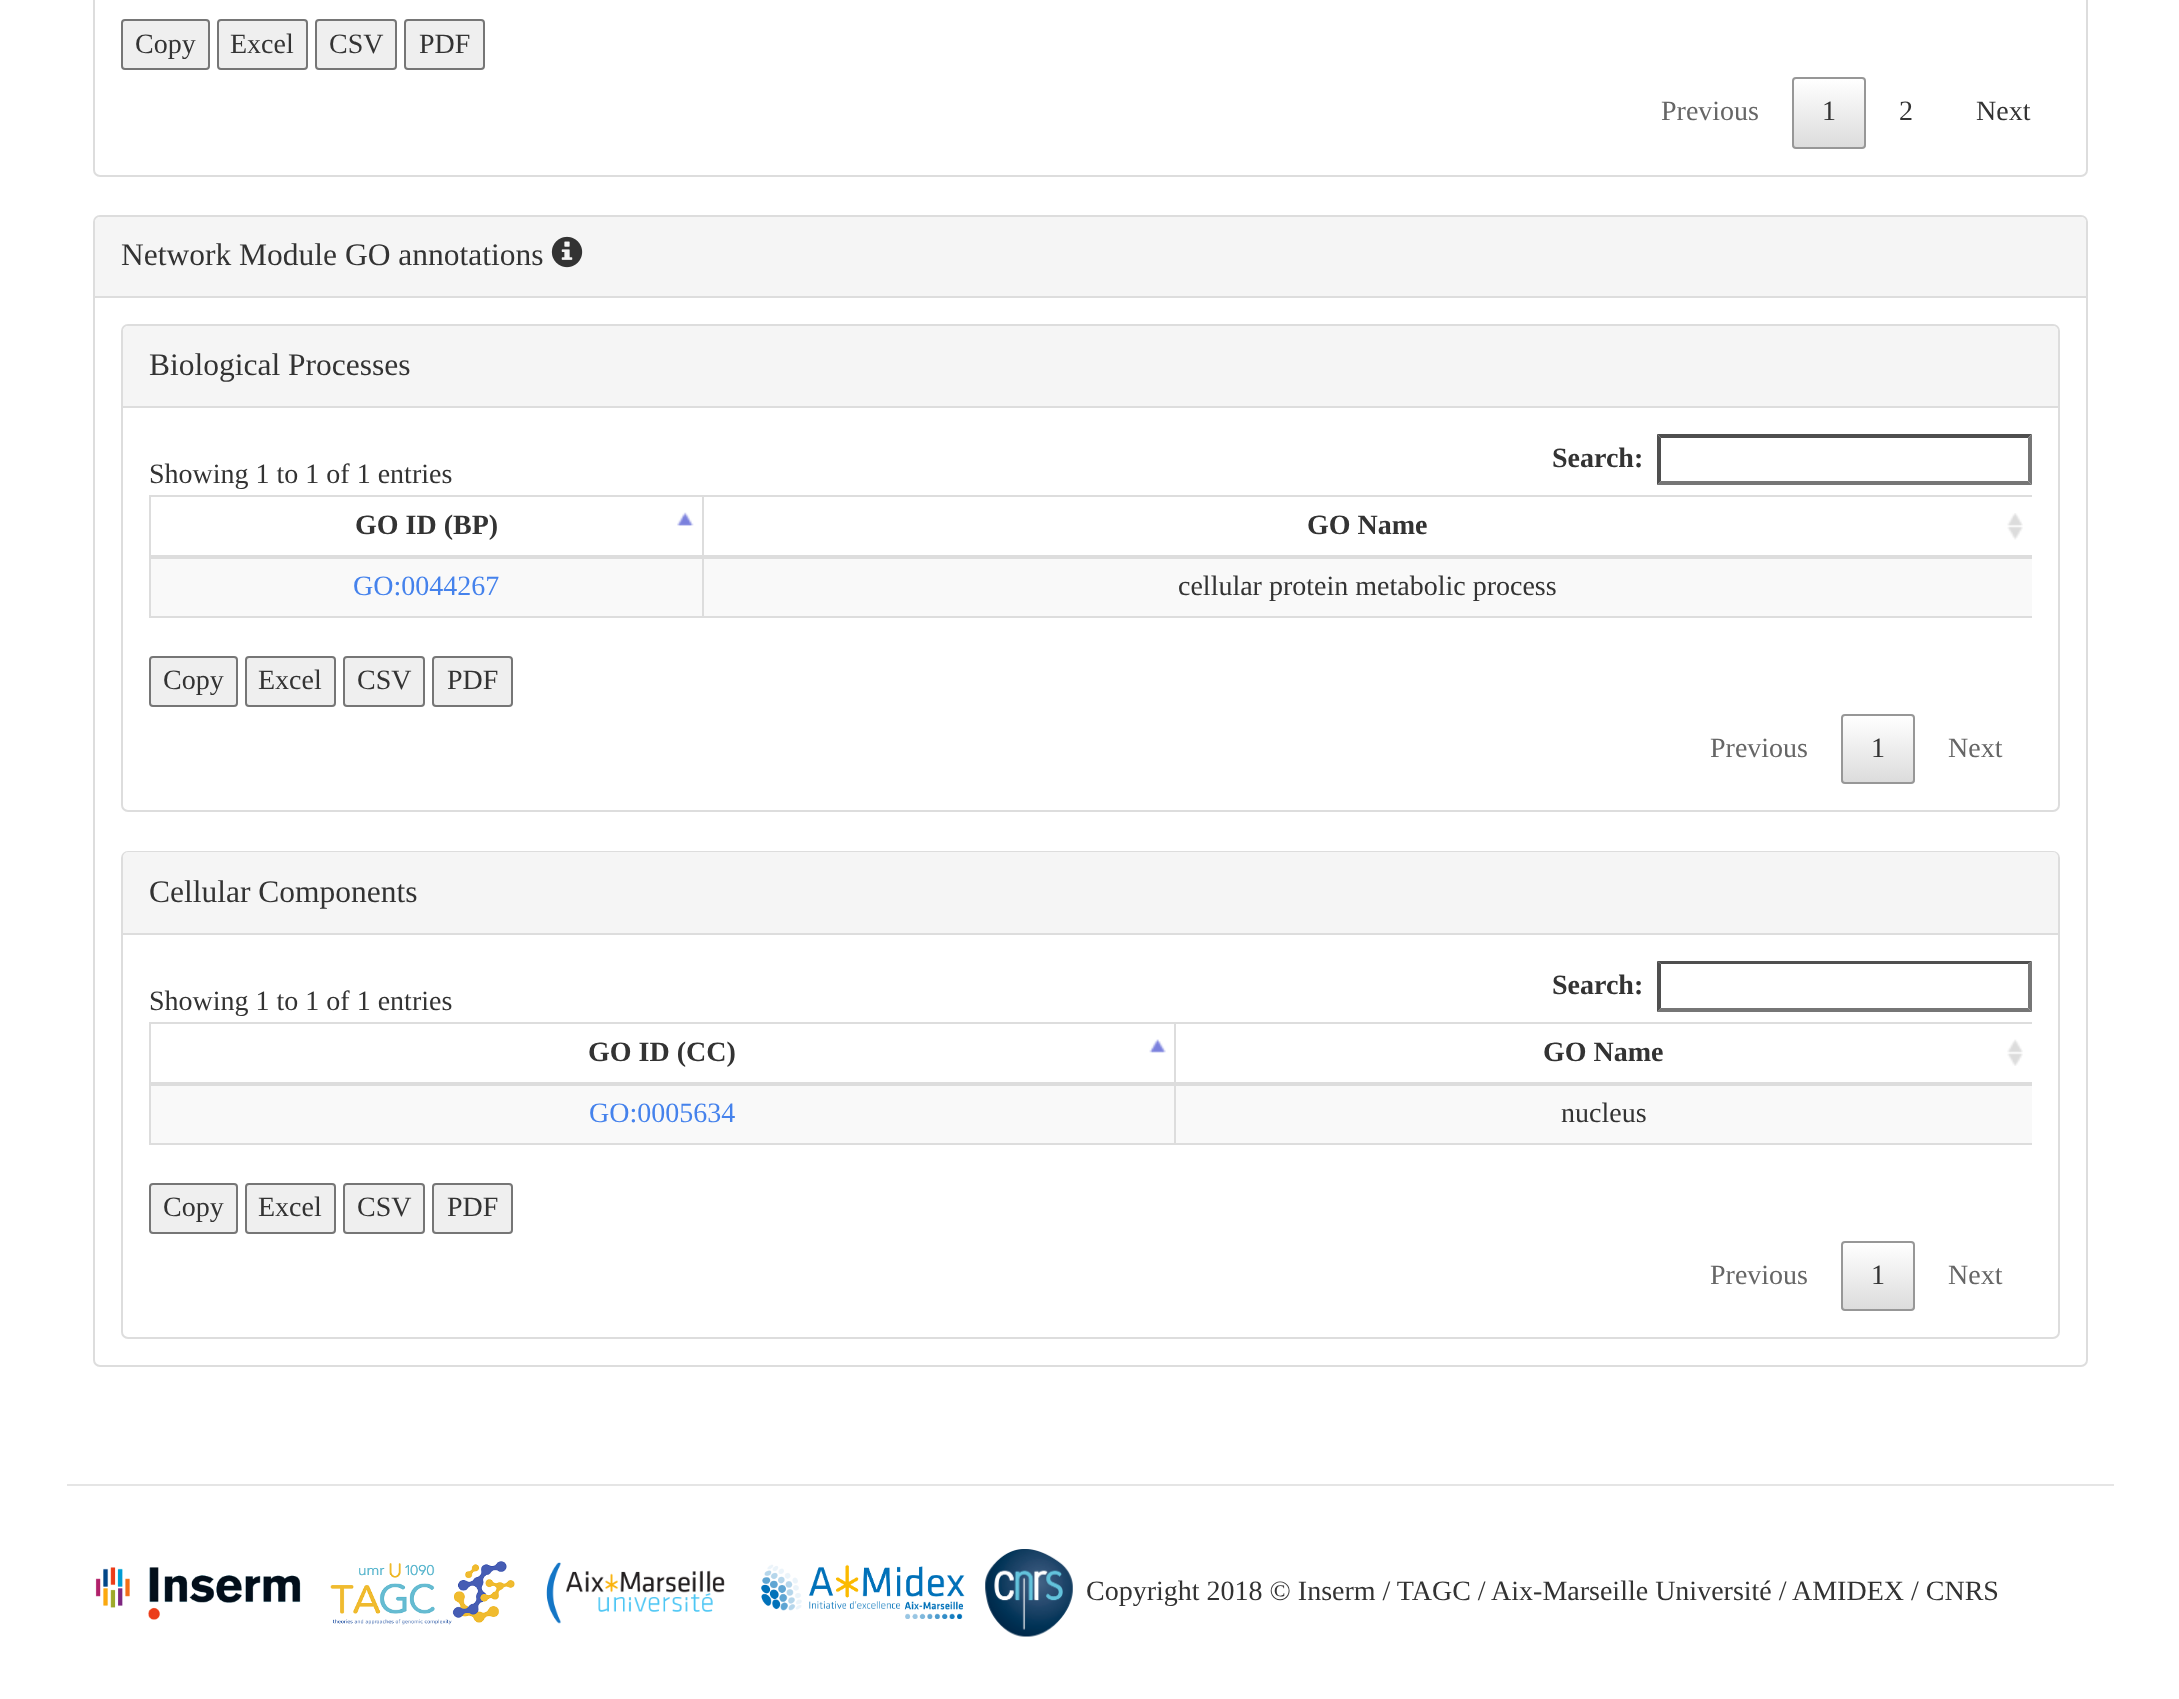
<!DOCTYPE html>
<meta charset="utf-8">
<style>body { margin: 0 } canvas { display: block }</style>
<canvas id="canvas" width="2179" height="1699"></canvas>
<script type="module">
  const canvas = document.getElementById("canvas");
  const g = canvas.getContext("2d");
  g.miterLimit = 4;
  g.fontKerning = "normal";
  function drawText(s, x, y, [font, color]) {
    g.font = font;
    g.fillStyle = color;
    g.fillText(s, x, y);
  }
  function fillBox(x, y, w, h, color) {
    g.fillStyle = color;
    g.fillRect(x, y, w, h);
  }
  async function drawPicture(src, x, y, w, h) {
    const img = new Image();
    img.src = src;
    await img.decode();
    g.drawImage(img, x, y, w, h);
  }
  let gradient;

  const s1 = ["28px Liberation Serif", "#333333"];
  const s2 = ["28px Liberation Serif", "#666666"];
  const s3 = ["31.5px Liberation Serif", "#333333"];
  const s4 = ["bold 28px Liberation Serif", "#333333"];
  const s5 = ["28px Liberation Serif", "#4582EC"];

  fillBox(0, 0, 2179, 1699, "#FFFFFF");
  g.beginPath();
  g.roundRect(94, -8, 1993, 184, 6);
  g.strokeStyle = "#DDDDDD";
  g.lineWidth = 2;
  g.stroke();
  g.fillStyle = "#EFEFEF";
  g.beginPath();
  g.roundRect(122, 20, 87, 49, 3);
  g.fill();
  g.strokeStyle = "#767676";
  g.stroke();
  drawText("Copy", 135, 53, s1);
  g.fillStyle = "#EFEFEF";
  g.beginPath();
  g.roundRect(218, 20, 89, 49, 3);
  g.fill();
  g.stroke();
  drawText("Excel", 230, 53, s1);
  g.fillStyle = "#EFEFEF";
  g.beginPath();
  g.roundRect(316, 20, 80, 49, 3);
  g.fill();
  g.stroke();
  drawText("CSV", 329, 53, s1);
  g.fillStyle = "#EFEFEF";
  g.beginPath();
  g.roundRect(405, 20, 79, 49, 3);
  g.fill();
  g.stroke();
  drawText("PDF", 419, 53, s1);
  drawText("Previous", 1661, 120, s2);
  g.save();
  g.beginPath();
  g.roundRect(1792, 77, 74, 72, 4);
  g.clip();
  gradient = g.createLinearGradient(1829, 79, 1829, 147);
  gradient.addColorStop(0, "#FFFFFF");
  gradient.addColorStop(1, "#DCDCDC");
  g.fillStyle = gradient;
  g.fillRect(1792, 79, 74, 68);
  g.restore();
  g.beginPath();
  g.roundRect(1793, 78, 72, 70, 3);
  g.strokeStyle = "#979797";
  g.stroke();
  drawText("1", 1822, 120, s1);
  drawText("2", 1899, 120, s1);
  drawText("Next", 1976, 120, s1);
  g.beginPath();
  g.roundRect(94, 216, 1993, 1150, 6);
  g.strokeStyle = "#DDDDDD";
  g.stroke();
  g.fillStyle = "#F5F5F5";
  g.beginPath();
  g.roundRect(95, 217, 1991, 81, [5, 5, 0, 0]);
  g.fill();
  fillBox(95, 296, 1991, 2, "#DDDDDD");
  drawText("Network Module GO annotations", 121, 265, s3);
  await drawPicture("pic1.png", 551, 236, 32, 32);
  g.beginPath();
  g.roundRect(122, 325, 1937, 486, 6);
  g.stroke();
  g.fillStyle = "#F5F5F5";
  g.beginPath();
  g.roundRect(123, 326, 1935, 82, [5, 5, 0, 0]);
  g.fill();
  fillBox(123, 406, 1935, 2, "#DDDDDD");
  drawText("Biological Processes", 149, 375, s3);
  drawText("Search:", 1552, 467, s4);
  g.fillStyle = "#4F4F4F";
  g.beginPath();
  g.moveTo(1657, 434);
  g.lineTo(2032, 434);
  g.lineTo(2028, 438);
  g.lineTo(1661, 438);
  g.closePath();
  g.fill();
  g.fillStyle = "#767676";
  g.beginPath();
  g.moveTo(2032, 434);
  g.lineTo(2032, 485);
  g.lineTo(2028, 481);
  g.lineTo(2028, 438);
  g.closePath();
  g.fill();
  g.beginPath();
  g.moveTo(2032, 485);
  g.lineTo(1657, 485);
  g.lineTo(1661, 481);
  g.lineTo(2028, 481);
  g.closePath();
  g.fill();
  g.fillStyle = "#4F4F4F";
  g.beginPath();
  g.moveTo(1657, 485);
  g.lineTo(1657, 434);
  g.lineTo(1661, 438);
  g.lineTo(1661, 481);
  g.closePath();
  g.fill();
  drawText("Showing 1 to 1 of 1 entries", 149, 483, s1);
  fillBox(149, 495, 1883, 2, "#DDDDDD");
  fillBox(149, 495, 2, 123, "#DDDDDD");
  await drawPicture("pic2.png", 677, 512, 17, 14);
  drawText("GO ID (BP)", 355, 534, s4);
  await drawPicture("pic3.png", 2007, 513, 16, 27);
  fillBox(151, 559, 1881, 57, "#F9F9F9");
  fillBox(702, 616, 1330, 2, "#DDDDDD");
  fillBox(702, 495, 2, 123, "#DDDDDD");
  fillBox(149, 555, 1883, 4, "#DDDDDD");
  drawText("GO Name", 1307, 534, s4);
  fillBox(149, 616, 555, 2, "#DDDDDD");
  drawText("GO:0044267", 353, 595, s5);
  drawText("cellular protein metabolic process", 1178, 595, s1);
  g.fillStyle = "#EFEFEF";
  g.beginPath();
  g.roundRect(150, 657, 87, 49, 3);
  g.fill();
  g.strokeStyle = "#767676";
  g.stroke();
  drawText("Copy", 163, 689, s1);
  g.fillStyle = "#EFEFEF";
  g.beginPath();
  g.roundRect(246, 657, 89, 49, 3);
  g.fill();
  g.stroke();
  drawText("Excel", 258, 689, s1);
  g.fillStyle = "#EFEFEF";
  g.beginPath();
  g.roundRect(344, 657, 80, 49, 3);
  g.fill();
  g.stroke();
  drawText("CSV", 357, 689, s1);
  g.fillStyle = "#EFEFEF";
  g.beginPath();
  g.roundRect(433, 657, 79, 49, 3);
  g.fill();
  g.stroke();
  drawText("PDF", 447, 689, s1);
  drawText("Previous", 1710, 757, s2);
  g.save();
  g.beginPath();
  g.roundRect(1841, 714, 74, 70, 4);
  g.clip();
  gradient = g.createLinearGradient(1878, 716, 1878, 782);
  gradient.addColorStop(0, "#FFFFFF");
  gradient.addColorStop(1, "#DCDCDC");
  g.fillStyle = gradient;
  g.fillRect(1841, 716, 74, 66);
  g.restore();
  g.beginPath();
  g.roundRect(1842, 715, 72, 68, 3);
  g.strokeStyle = "#979797";
  g.stroke();
  drawText("1", 1871, 757, s1);
  drawText("Next", 1948, 757, s2);
  g.beginPath();
  g.roundRect(122, 852, 1937, 486, 6);
  g.strokeStyle = "#DDDDDD";
  g.stroke();
  g.fillStyle = "#F5F5F5";
  g.beginPath();
  g.roundRect(123, 852, 1935, 83, [5, 5, 0, 0]);
  g.fill();
  fillBox(123, 933, 1935, 2, "#DDDDDD");
  drawText("Cellular Components", 149, 902, s3);
  drawText("Search:", 1552, 994, s4);
  g.fillStyle = "#4F4F4F";
  g.beginPath();
  g.moveTo(1657, 961);
  g.lineTo(2032, 961);
  g.lineTo(2028, 964);
  g.lineTo(1661, 964);
  g.closePath();
  g.fill();
  g.fillStyle = "#767676";
  g.beginPath();
  g.moveTo(2032, 961);
  g.lineTo(2032, 1012);
  g.lineTo(2028, 1008);
  g.lineTo(2028, 964);
  g.closePath();
  g.fill();
  g.beginPath();
  g.moveTo(2032, 1012);
  g.lineTo(1657, 1012);
  g.lineTo(1661, 1008);
  g.lineTo(2028, 1008);
  g.closePath();
  g.fill();
  g.fillStyle = "#4F4F4F";
  g.beginPath();
  g.moveTo(1657, 1012);
  g.lineTo(1657, 961);
  g.lineTo(1661, 964);
  g.lineTo(1661, 1008);
  g.closePath();
  g.fill();
  drawText("Showing 1 to 1 of 1 entries", 149, 1010, s1);
  fillBox(149, 1022, 1883, 2, "#DDDDDD");
  fillBox(149, 1022, 2, 123, "#DDDDDD");
  await drawPicture("pic4.png", 1149, 1039, 17, 14);
  drawText("GO ID (CC)", 588, 1061, s4);
  await drawPicture("pic5.png", 2007, 1039, 16, 27);
  fillBox(151, 1086, 1881, 57, "#F9F9F9");
  fillBox(1174, 1143, 858, 2, "#DDDDDD");
  fillBox(1174, 1022, 2, 123, "#DDDDDD");
  fillBox(149, 1082, 1883, 4, "#DDDDDD");
  drawText("GO Name", 1543, 1061, s4);
  fillBox(149, 1143, 1027, 2, "#DDDDDD");
  drawText("GO:0005634", 589, 1122, s5);
  drawText("nucleus", 1561, 1122, s1);
  g.fillStyle = "#EFEFEF";
  g.beginPath();
  g.roundRect(150, 1184, 87, 49, 3);
  g.fill();
  g.strokeStyle = "#767676";
  g.stroke();
  drawText("Copy", 163, 1216, s1);
  g.fillStyle = "#EFEFEF";
  g.beginPath();
  g.roundRect(246, 1184, 89, 49, 3);
  g.fill();
  g.stroke();
  drawText("Excel", 258, 1216, s1);
  g.fillStyle = "#EFEFEF";
  g.beginPath();
  g.roundRect(344, 1184, 80, 49, 3);
  g.fill();
  g.stroke();
  drawText("CSV", 357, 1216, s1);
  g.fillStyle = "#EFEFEF";
  g.beginPath();
  g.roundRect(433, 1184, 79, 49, 3);
  g.fill();
  g.stroke();
  drawText("PDF", 447, 1216, s1);
  drawText("Previous", 1710, 1284, s2);
  g.save();
  g.beginPath();
  g.roundRect(1841, 1241, 74, 70, 4);
  g.clip();
  gradient = g.createLinearGradient(1878, 1243, 1878, 1309);
  gradient.addColorStop(0, "#FFFFFF");
  gradient.addColorStop(1, "#DCDCDC");
  g.fillStyle = gradient;
  g.fillRect(1841, 1243, 74, 66);
  g.restore();
  g.beginPath();
  g.roundRect(1842, 1242, 72, 68, 3);
  g.strokeStyle = "#979797";
  g.stroke();
  drawText("1", 1871, 1284, s1);
  drawText("Next", 1948, 1284, s2);
  fillBox(67, 1484, 2047, 2, "#E5E5E5");
  await drawPicture("pic6.png", 95, 1567, 206, 53);
  await drawPicture("pic7.png", 330, 1561, 185, 64);
  await drawPicture("pic8.png", 546, 1562, 179, 62);
  await drawPicture("pic9.png", 761, 1564, 204, 55);
  await drawPicture("pic10.png", 985, 1549, 88, 88);
  drawText("Copyright 2018 © Inserm / TAGC / Aix-Marseille Université / AMIDEX / CNRS", 1086, 1600, s1);
</script>
